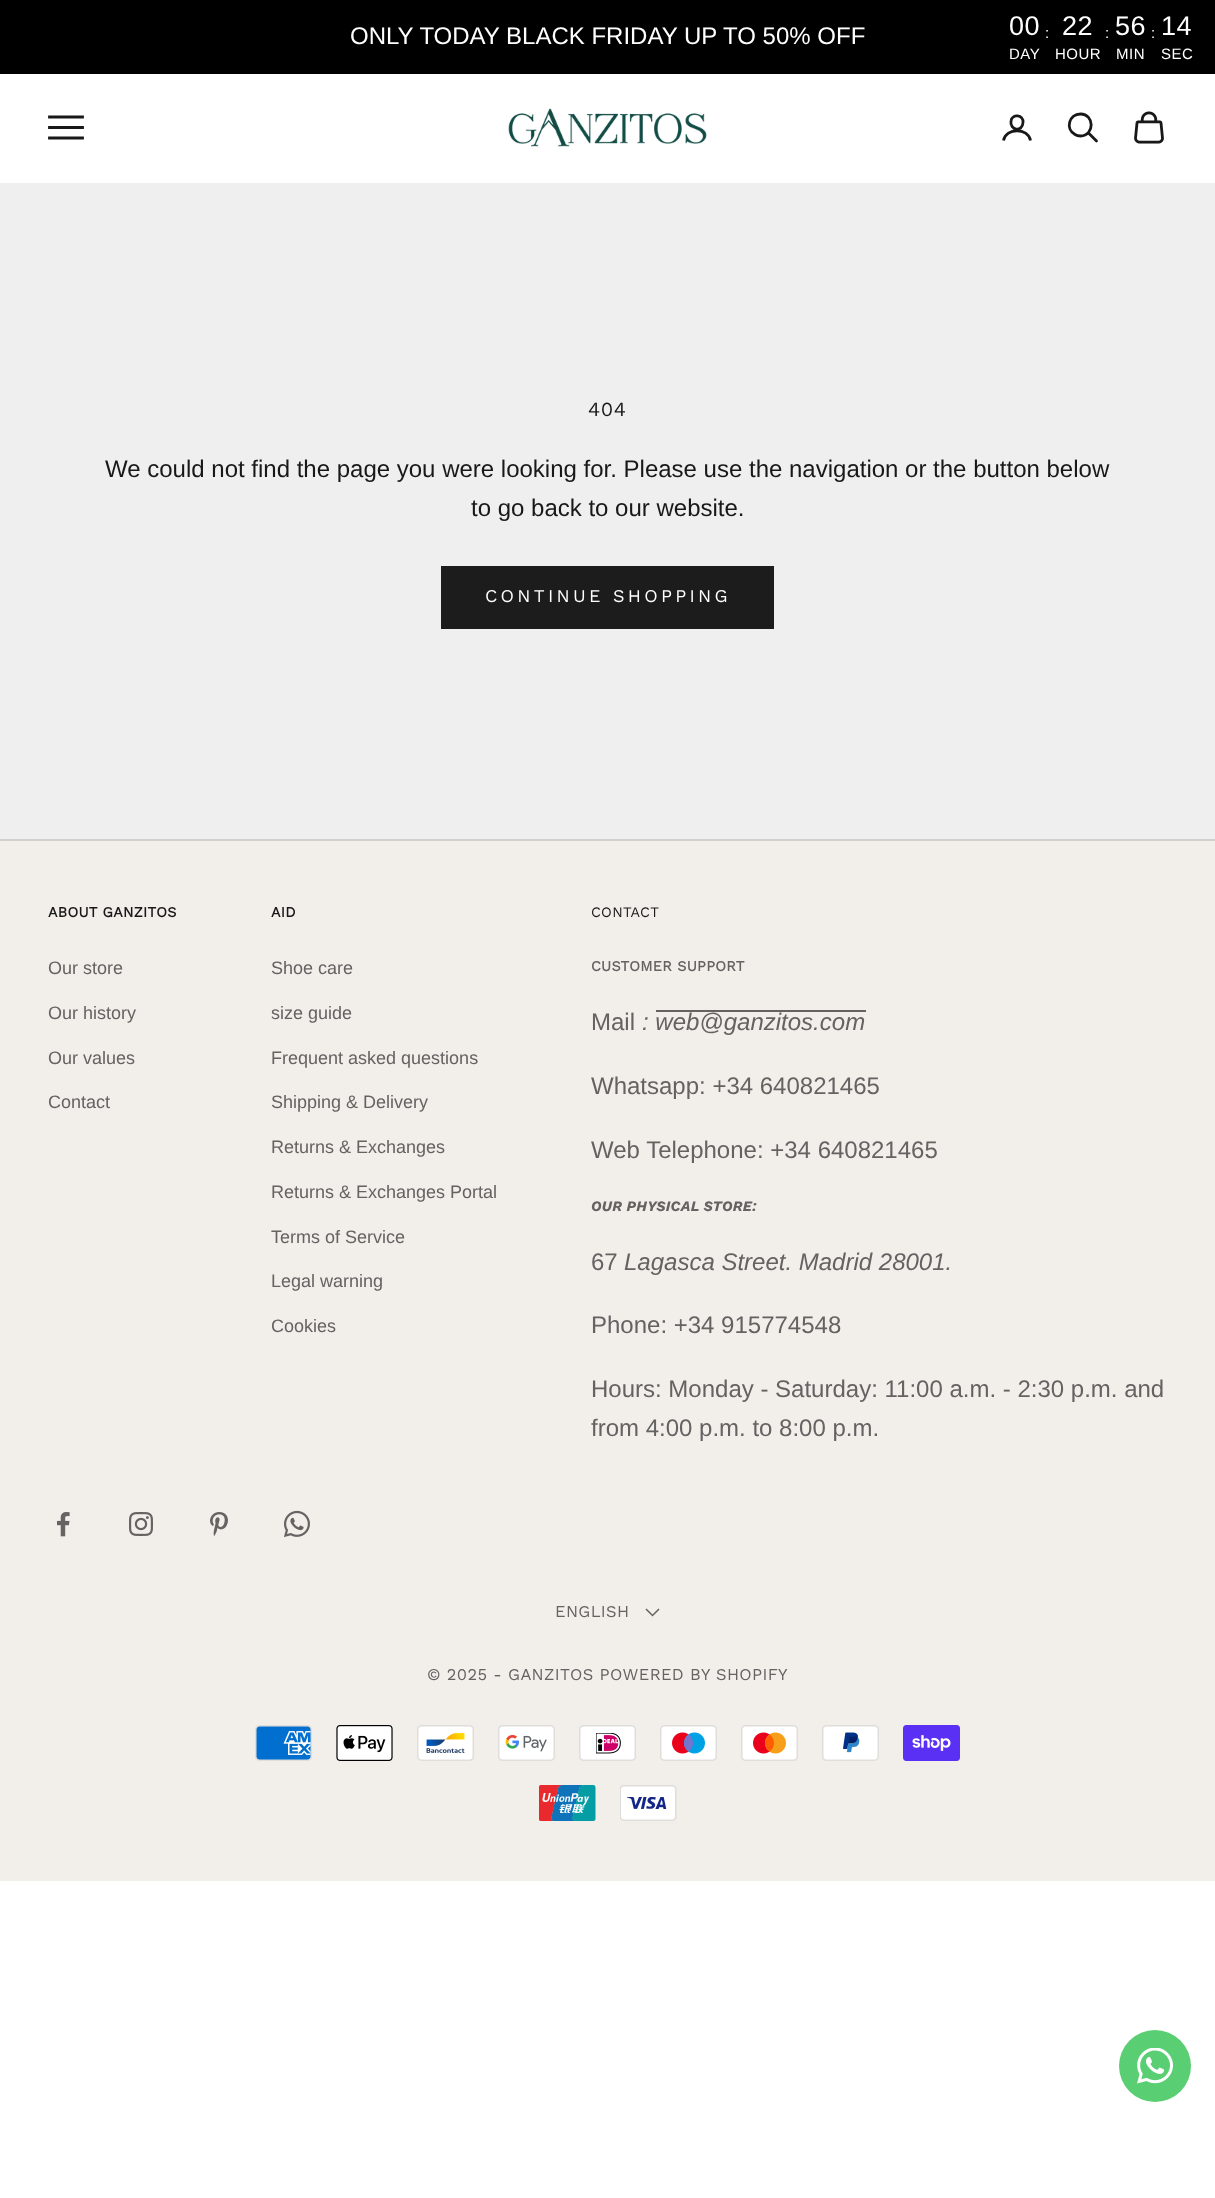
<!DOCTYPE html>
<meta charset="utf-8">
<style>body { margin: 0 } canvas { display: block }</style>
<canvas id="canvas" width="1215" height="2198"></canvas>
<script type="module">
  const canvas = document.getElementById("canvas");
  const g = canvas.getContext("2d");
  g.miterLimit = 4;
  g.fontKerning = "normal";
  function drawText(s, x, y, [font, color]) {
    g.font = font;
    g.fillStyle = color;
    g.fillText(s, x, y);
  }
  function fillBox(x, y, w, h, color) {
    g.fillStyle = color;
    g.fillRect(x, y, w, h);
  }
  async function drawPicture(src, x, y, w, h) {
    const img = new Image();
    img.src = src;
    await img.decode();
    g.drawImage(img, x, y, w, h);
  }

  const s1 = ["24px Liberation Sans", "#FFFFFF"];
  const s2 = ["27px Liberation Sans", "#FFFFFF"];
  const s3 = ["15px Liberation Sans", "#FFFFFF"];
  const s4 = ["20px Work Sans", "#181818"];
  const s5 = ["24px Liberation Sans", "#181818"];
  const s6 = ["18px Work Sans", "#FFFFFF"];
  const s7 = ["bold 14.4px Work Sans", "#181818"];
  const s8 = ["18px Liberation Sans", "#646362"];
  const s9 = ["14.4px Work Sans", "#181818"];
  const s10 = ["bold 14.4px Work Sans", "#646362"];
  const s11 = ["24px Liberation Sans", "#646362"];
  const s12 = ["italic 24px Liberation Sans", "#646362"];
  const s13 = ["italic bold 14.4px Work Sans", "#646362"];
  const s14 = ["16.5px Work Sans", "#646362"];

  fillBox(0, 0, 1215, 2198, "#FFFFFF");
  fillBox(0, 0, 1215, 74, "#000000");
  drawText("ONLY TODAY BLACK FRIDAY UP TO 50% OFF", 350, 44, s1);
  g.letterSpacing = "0.5px";
  drawText("00", 1009, 35, s2);
  drawText("DAY", 1009, 59, s3);
  drawText(":", 1045, 38, s3);
  drawText("22", 1062, 35, s2);
  drawText("HOUR", 1055, 59, s3);
  drawText(":", 1105, 38, s3);
  drawText("56", 1115, 35, s2);
  drawText("MIN", 1116, 59, s3);
  drawText(":", 1151, 38, s3);
  drawText("14", 1161, 35, s2);
  drawText("SEC", 1161, 59, s3);
  g.beginPath();
  g.moveTo(49.5, 138);
  g.lineTo(82.5, 138);
  g.moveTo(49.5, 127.5);
  g.lineTo(82.5, 127.5);
  g.moveTo(49.5, 117);
  g.lineTo(82.5, 117);
  g.strokeStyle = "#181818";
  g.lineWidth = 2.8;
  g.lineCap = "square";
  g.stroke();
  await drawPicture("pic1.png", 508, 108, 199, 39);
  g.beginPath();
  g.moveTo(1023, 122.5);
  g.bezierCurveTo(1022.5, 132.5, 1009.5, 130.5, 1011, 121);
  g.bezierCurveTo(1012, 113.5, 1024, 114.5, 1023, 122.5);
  g.closePath();
  g.lineCap = "round";
  g.lineJoin = "round";
  g.stroke();
  g.beginPath();
  g.moveTo(1003.5, 140.5);
  g.bezierCurveTo(1006, 127.5, 1028, 127.5, 1030.5, 140.5);
  g.lineCap = "butt";
  g.lineJoin = "miter";
  g.stroke();
  g.beginPath();
  g.moveTo(1080.5, 114);
  g.bezierCurveTo(1069, 114, 1065, 129, 1075, 134.5);
  g.bezierCurveTo(1076.5, 135.5, 1078.5, 136, 1080.5, 136);
  g.bezierCurveTo(1095, 135.5, 1094.5, 114, 1080.5, 114);
  g.closePath();
  g.stroke();
  g.beginPath();
  g.moveTo(1089, 133.5);
  g.lineTo(1096.5, 141);
  g.lineCap = "round";
  g.stroke();
  await drawPicture("pic2.png", 1134, 111, 30, 33);
  fillBox(0, 183, 1215, 656, "#EFEFEF");
  drawText("404", 588, 416, s4);
  g.letterSpacing = "0px";
  drawText("We could not find the page you were looking for. Please use the navigation or the button below", 105, 477, s5);
  drawText("to go back to our website.", 471, 516, s5);
  g.fillStyle = "#1C1C1C";
  g.beginPath();
  g.rect(442, 567, 331, 61);
  g.fill();
  g.strokeStyle = "#1C1C1C";
  g.lineWidth = 2;
  g.stroke();
  g.letterSpacing = "3.25px";
  drawText("CONTINUE SHOPPING", 485, 602, s6);
  fillBox(0, 841, 1215, 1040, "#F2EFEB");
  fillBox(0, 839, 1215, 2, "#D1CFCB");
  g.letterSpacing = "0.25px";
  drawText("ABOUT GANZITOS", 48, 917, s7);
  g.letterSpacing = "0px";
  drawText("Our store", 48, 974, s8);
  drawText("Our history", 48, 1019, s8);
  drawText("Our values", 48, 1064, s8);
  drawText("Contact", 48, 1108, s8);
  g.letterSpacing = "0.25px";
  drawText("AID", 271, 917, s7);
  g.letterSpacing = "0px";
  drawText("Shoe care", 271, 974, s8);
  drawText("size guide", 271, 1019, s8);
  drawText("Frequent asked questions", 271, 1064, s8);
  drawText("Shipping & Delivery", 271, 1108, s8);
  drawText("Returns & Exchanges", 271, 1153, s8);
  drawText("Returns & Exchanges Portal", 271, 1198, s8);
  drawText("Terms of Service", 271, 1243, s8);
  drawText("Legal warning", 271, 1287, s8);
  drawText("Cookies", 271, 1332, s8);
  g.letterSpacing = "0.25px";
  drawText("CONTACT", 591, 917, s9);
  drawText("CUSTOMER SUPPORT", 591, 971, s10);
  fillBox(656, 1010, 210, 2, "#646362");
  g.letterSpacing = "0px";
  drawText("Mail", 591, 1030, s11);
  drawText(": web@ganzitos.com", 642, 1030, s12);
  drawText("Whatsapp: +34 640821465", 591, 1094, s11);
  drawText("Web Telephone: +34 640821465", 591, 1158, s11);
  g.letterSpacing = "0.25px";
  drawText("OUR PHYSICAL STORE:", 591, 1211, s13);
  g.letterSpacing = "0px";
  drawText("67", 591, 1270, s11);
  drawText("Lagasca Street. Madrid 28001.", 624, 1270, s12);
  drawText("Phone: +34 915774548", 591, 1333, s11);
  drawText("Hours: Monday - Saturday: 11:00 a.m. - 2:30 p.m. and", 591, 1397, s11);
  drawText("from 4:00 p.m. to 8:00 p.m.", 591, 1436, s11);
  await drawPicture("pic3.png", 57, 1512, 13, 25);
  await drawPicture("pic4.png", 129, 1512, 24, 24);
  await drawPicture("pic5.png", 210, 1512, 18, 24);
  await drawPicture("pic6.png", 284, 1510, 26, 27);
  g.letterSpacing = "0.35px";
  drawText("ENGLISH", 555, 1617, s14);
  g.beginPath();
  g.moveTo(646.5, 1609.5);
  g.lineTo(652.5, 1615.5);
  g.lineTo(658.5, 1609.5);
  g.strokeStyle = "#646362";
  g.lineWidth = 1.5;
  g.lineCap = "square";
  g.stroke();
  drawText("© 2025 - GANZITOS POWERED BY SHOPIFY", 427, 1680, s14);
  await drawPicture("pic7.png", 255, 1725, 57, 36);
  await drawPicture("pic8.png", 336, 1725, 57, 36);
  await drawPicture("pic9.png", 417, 1725, 57, 36);
  await drawPicture("pic10.png", 498, 1725, 57, 36);
  await drawPicture("pic11.png", 579, 1725, 57, 36);
  await drawPicture("pic12.png", 660, 1725, 57, 36);
  await drawPicture("pic13.png", 741, 1725, 57, 36);
  await drawPicture("pic14.png", 822, 1725, 57, 36);
  await drawPicture("pic15.png", 903, 1725, 57, 36);
  await drawPicture("pic16.png", 539, 1785, 57, 36);
  await drawPicture("pic17.png", 620, 1785, 57, 36);
  g.fillStyle = "#59CE72";
  g.beginPath();
  g.arc(1155, 2066, 36, 0, Math.PI * 2);
  g.fill();
  await drawPicture("pic18.png", 1137, 2048, 36, 36);
</script>
